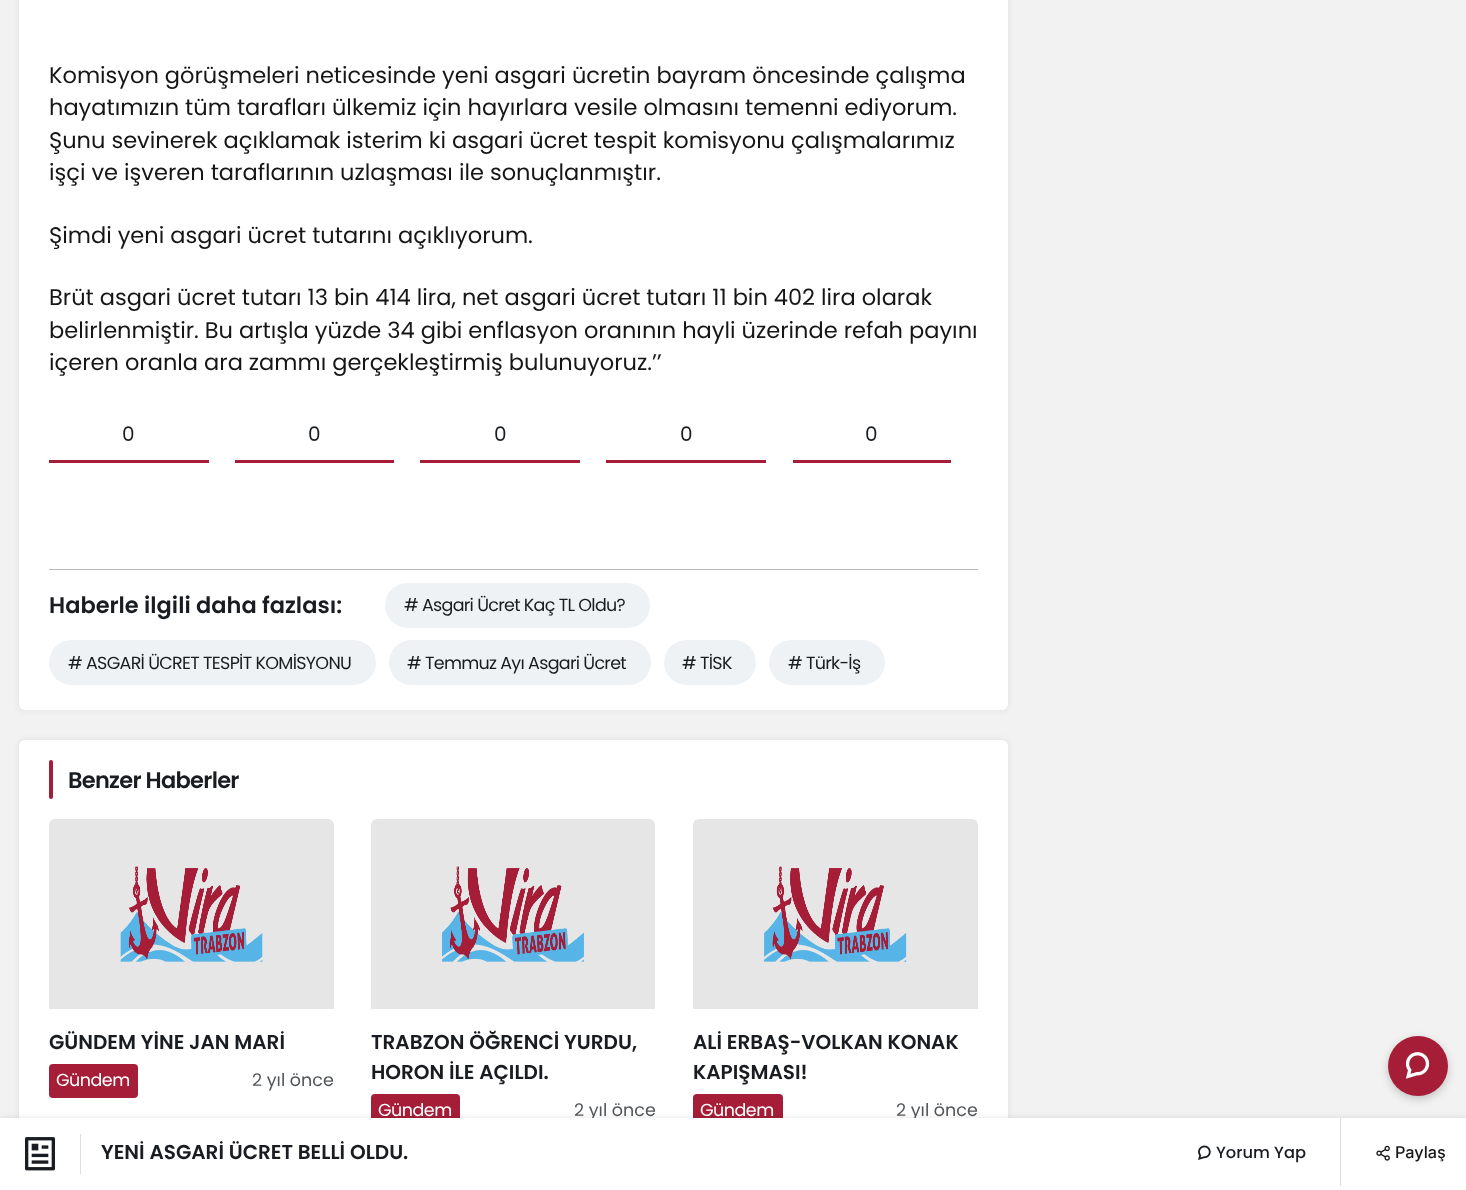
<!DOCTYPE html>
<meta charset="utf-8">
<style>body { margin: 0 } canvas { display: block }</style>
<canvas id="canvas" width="1466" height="1190"></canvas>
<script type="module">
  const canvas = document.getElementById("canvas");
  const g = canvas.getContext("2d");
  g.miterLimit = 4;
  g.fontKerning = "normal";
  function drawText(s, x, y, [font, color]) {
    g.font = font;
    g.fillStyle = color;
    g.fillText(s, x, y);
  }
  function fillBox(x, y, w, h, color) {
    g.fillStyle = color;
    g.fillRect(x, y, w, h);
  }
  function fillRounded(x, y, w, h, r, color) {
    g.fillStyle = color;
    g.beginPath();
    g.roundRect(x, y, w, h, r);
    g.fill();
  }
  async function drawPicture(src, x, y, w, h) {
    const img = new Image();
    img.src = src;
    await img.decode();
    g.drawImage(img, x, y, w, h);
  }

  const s1 = ["22.5px Poppins", "#161616"];
  const s2 = ["20px Poppins", "#191C20"];
  const s3 = ["600 22.5px Poppins", "#191C20"];
  const s4 = ["17.5px Poppins", "#191C20"];
  const s5 = ["17.5px Poppins", "#525659"];
  const s6 = ["600 20px Poppins", "#191C20"];
  const s7 = ["500 16.25px Poppins", "#191C20"];
  const s8 = ["500 16.25px Inter", "#161616"];
  const s9 = ["17.5px Poppins", "#FFFFFF"];

  fillBox(0, 0, 1466, 1190, "#F2F2F3");
  g.fillStyle = "rgba(50, 53, 61, 0.1)";
  g.filter = "blur(3px)";
  g.beginPath();
  g.roundRect(19, -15, 989, 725, 6);
  g.fill();
  g.filter = "none";
  fillRounded(19, -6, 989, 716, 6, "#FFFFFF");
  drawText("Komisyon görüşmeleri neticesinde yeni asgari ücretin bayram öncesinde çalışma", 49, 83, s1);
  drawText("hayatımızın tüm tarafları ülkemiz için hayırlara vesile olmasını temenni ediyorum.", 49, 115, s1);
  drawText("Şunu sevinerek açıklamak isterim ki asgari ücret tespit komisyonu çalışmalarımız", 49, 148, s1);
  drawText("işçi ve işveren taraflarının uzlaşması ile sonuçlanmıştır.", 49, 180, s1);
  drawText("Şimdi yeni asgari ücret tutarını açıklıyorum.", 49, 243, s1);
  drawText("Brüt asgari ücret tutarı 13 bin 414 lira, net asgari ücret tutarı 11 bin 402 lira olarak", 49, 305, s1);
  drawText("belirlenmiştir. Bu artışla yüzde 34 gibi enflasyon oranının hayli üzerinde refah payını", 49, 338, s1);
  drawText("içeren oranla ara zammı gerçekleştirmiş bulunuyoruz.’’", 49, 370, s1);
  drawText("0", 122, 441, s2);
  fillBox(49, 460, 160, 3, "#A61D37");
  drawText("0", 308, 441, s2);
  fillBox(235, 460, 159, 3, "#A61D37");
  drawText("0", 494, 441, s2);
  fillBox(420, 460, 160, 3, "#A61D37");
  drawText("0", 680, 441, s2);
  fillBox(606, 460, 160, 3, "#A61D37");
  drawText("0", 865, 441, s2);
  fillBox(793, 460, 158, 3, "#A61D37");
  fillBox(49, 569, 929, 1, "#B9B9B9");
  drawText("Haberle ilgili daha fazlası:", 49, 613, s3);
  fillRounded(385, 583, 265, 45, 22.5, "#EEF2F5");
  g.letterSpacing = "-0.7px";
  drawText("# Asgari Ücret Kaç TL Oldu?", 404, 611, s4);
  fillRounded(49, 640, 327, 45, 22.5, "#EEF2F5");
  drawText("# ASGARİ ÜCRET TESPİT KOMİSYONU", 68, 669, s4);
  fillRounded(389, 640, 262, 45, 22.5, "#EEF2F5");
  drawText("# Temmuz Ayı Asgari Ücret", 407, 669, s4);
  fillRounded(664, 640, 92, 45, 22.5, "#EEF2F5");
  drawText("# TİSK", 682, 669, s4);
  fillRounded(769, 640, 116, 45, 22.5, "#EEF2F5");
  drawText("# Türk-İş", 788, 669, s4);
  g.fillStyle = "rgba(50, 53, 61, 0.1)";
  g.filter = "blur(3px)";
  g.beginPath();
  g.roundRect(19, 740, 989, 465, 6);
  g.fill();
  g.filter = "none";
  fillRounded(19, 740, 989, 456, 6, "#FFFFFF");
  g.fillStyle = "#A61D37";
  g.beginPath();
  g.roundRect(371, 1094, 89, 34, [4, 4, 4, 6]);
  g.fill();
  g.beginPath();
  g.roundRect(693, 1094, 90, 34, [4, 4, 4, 6]);
  g.fill();
  g.fillStyle = "rgba(0, 0, 0, 0.1)";
  g.filter = "blur(3px)";
  g.beginPath();
  g.rect(1, 1118, 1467, 72);
  g.fill();
  g.filter = "none";
  g.letterSpacing = "0px";
  drawText("2 yıl önce", 574, 1116, s5);
  drawText("2 yıl önce", 896, 1116, s5);
  fillBox(0, 1118, 1466, 72, "#FFFFFF");
  await drawPicture("pic1.png", 25, 1137, 30, 34);
  fillBox(80, 1134, 1, 40, "#DEDFE2");
  drawText("YENİ ASGARİ ÜCRET BELLİ OLDU.", 101, 1159, s6);
  await drawPicture("pic2.png", 1198, 1145, 13, 15);
  drawText("Yorum Yap", 1216, 1158, s7);
  fillBox(1340, 1118, 1, 68, "#DEDFE2");
  await drawPicture("pic3.png", 1376, 1145, 14, 16);
  drawText("Paylaş", 1395, 1158, s8);
  fillRounded(49, 760, 4, 39, 2, "#A61D37");
  g.letterSpacing = "-0.7px";
  drawText("Benzer Haberler", 68, 788, s3);
  g.fillStyle = "#E6E6E6";
  g.beginPath();
  g.roundRect(49, 819, 285, 190, [6, 6, 0, 0]);
  g.fill();
  await drawPicture("pic4.png", 120, 866, 143, 96);
  g.letterSpacing = "0px";
  drawText("GÜNDEM YİNE JAN MARİ", 49, 1049, s6);
  fillRounded(49, 1064, 89, 34, 4, "#A61D37");
  g.letterSpacing = "-0.5px";
  drawText("Gündem", 56, 1086, s9);
  g.letterSpacing = "0px";
  drawText("2 yıl önce", 252, 1086, s5);
  g.fillStyle = "#E6E6E6";
  g.beginPath();
  g.roundRect(371, 819, 284, 190, [6, 6, 0, 0]);
  g.fill();
  await drawPicture("pic5.png", 442, 866, 142, 96);
  drawText("TRABZON ÖĞRENCİ YURDU,", 371, 1049, s6);
  drawText("HORON İLE AÇILDI.", 371, 1079, s6);
  g.letterSpacing = "-0.5px";
  drawText("Gündem", 378, 1116, s9);
  g.fillStyle = "#E6E6E6";
  g.beginPath();
  g.roundRect(693, 819, 285, 190, [6, 6, 0, 0]);
  g.fill();
  await drawPicture("pic6.png", 764, 866, 143, 96);
  g.letterSpacing = "0px";
  drawText("ALİ ERBAŞ-VOLKAN KONAK", 693, 1049, s6);
  drawText("KAPIŞMASI!", 693, 1079, s6);
  g.letterSpacing = "-0.5px";
  drawText("Gündem", 700, 1116, s9);
  g.fillStyle = "rgba(0, 0, 0, 0.2)";
  g.filter = "blur(4px)";
  g.beginPath();
  g.roundRect(1388, 1039, 60, 60, 30);
  g.fill();
  g.filter = "none";
  g.fillStyle = "#A61D37";
  g.beginPath();
  g.arc(1418, 1066, 30, 0, Math.PI * 2);
  g.fill();
  await drawPicture("pic7.png", 1405, 1052, 25, 27);
</script>
